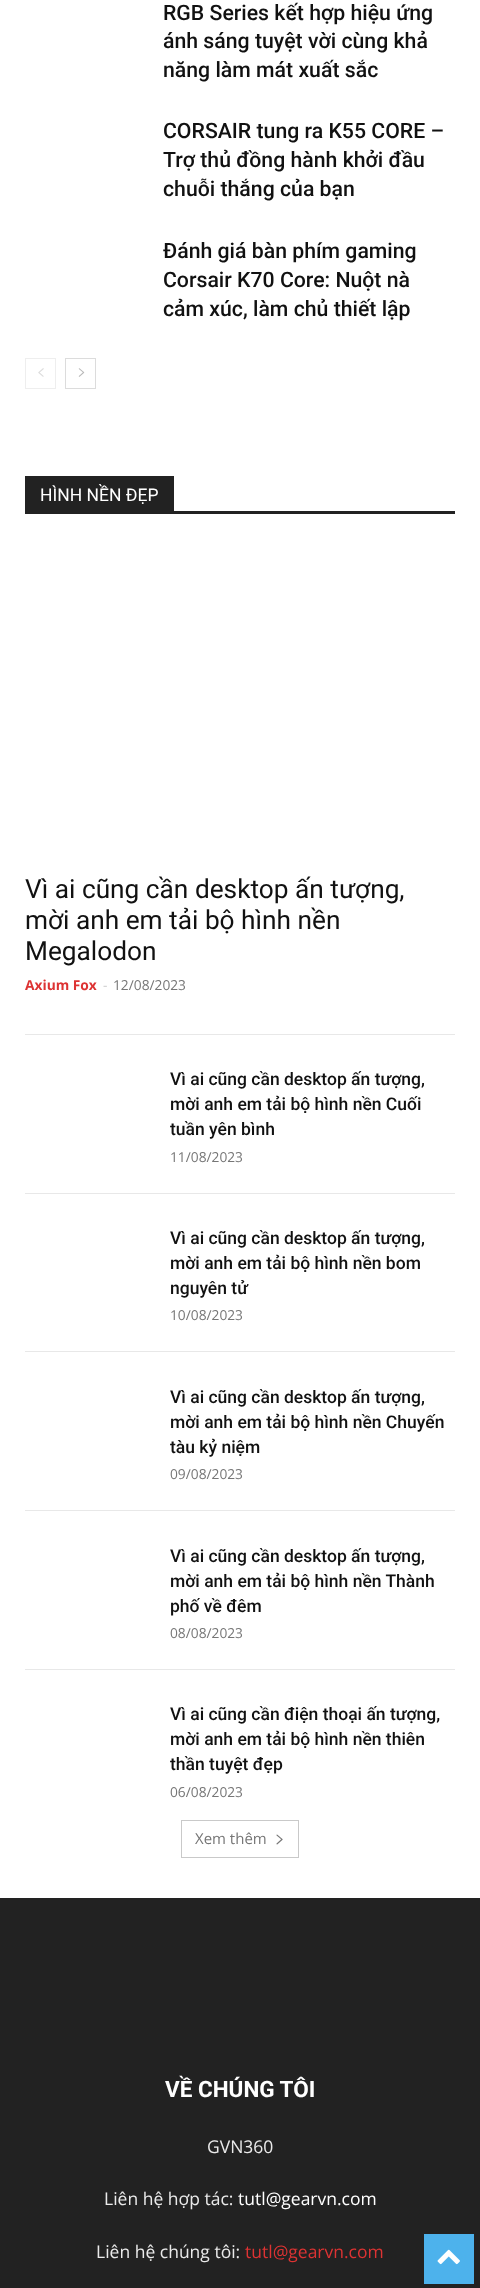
<!DOCTYPE html>
<meta charset="utf-8">
<style>body { margin: 0 } canvas { display: block }</style>
<canvas id="canvas" width="480" height="2288"></canvas>
<script type="module">
  const canvas = document.getElementById("canvas");
  const g = canvas.getContext("2d");
  g.miterLimit = 4;
  g.fontKerning = "normal";
  function drawText(s, x, y, [font, color]) {
    g.font = font;
    g.fillStyle = color;
    g.fillText(s, x, y);
  }
  function fillBox(x, y, w, h, color) {
    g.fillStyle = color;
    g.fillRect(x, y, w, h);
  }
  async function drawPicture(src, x, y, w, h) {
    const img = new Image();
    img.src = src;
    await img.decode();
    g.drawImage(img, x, y, w, h);
  }

  const s1 = ["500 21.25px Roboto", "#111111"];
  const s2 = ["17.5px Roboto", "#FFFFFF"];
  const s3 = ["26.25px Roboto", "#111111"];
  const s4 = ["bold 13.75px Open Sans", "#DD3333"];
  const s5 = ["13.75px Open Sans", "#CCCCCC"];
  const s6 = ["13.75px Open Sans", "#767676"];
  const s7 = ["500 17.5px Roboto", "#111111"];
  const s8 = ["15px Open Sans", "#767676"];
  const s9 = ["bold 22.5px Roboto", "#FFFFFF"];
  const s10 = ["17.5px Open Sans", "#EAEAEA"];
  const s11 = ["17.5px Open Sans", "#FFFFFF"];
  const s12 = ["17.5px Open Sans", "#DD3333"];

  fillBox(0, 0, 480, 2288, "#FFFFFF");
  drawText("RGB Series kết hợp hiệu ứng", 163, 20, s1);
  drawText("ánh sáng tuyệt vời cùng khả", 163, 48, s1);
  drawText("năng làm mát xuất sắc", 163, 77, s1);
  drawText("CORSAIR tung ra K55 CORE –", 163, 138, s1);
  drawText("Trợ thủ đồng hành khởi đầu", 163, 167, s1);
  drawText("chuỗi thắng của bạn", 163, 196, s1);
  drawText("Đánh giá bàn phím gaming", 163, 258, s1);
  drawText("Corsair K70 Core: Nuột nà", 163, 287, s1);
  drawText("cảm xúc, làm chủ thiết lập", 163, 316, s1);
  g.strokeStyle = "#EEEEEE";
  g.strokeRect(25.5, 358.5, 30, 30);
  await drawPicture("pic1.png", 38, 368, 6, 9);
  g.strokeStyle = "#DCDCDC";
  g.strokeRect(65.5, 358.5, 30, 30);
  await drawPicture("pic2.png", 78, 368, 7, 9);
  fillBox(25, 511, 430, 3, "#222222");
  fillBox(25, 476, 149, 35, "#222222");
  drawText("HÌNH NỀN ĐẸP", 40, 501, s2);
  fillBox(25, 1034, 430, 1, "#E8E8E8");
  drawText("Vì ai cũng cần desktop ấn tượng,", 25, 898, s3);
  drawText("mời anh em tải bộ hình nền", 25, 929, s3);
  drawText("Megalodon", 25, 960, s3);
  drawText("Axium Fox", 25, 990, s4);
  drawText("-", 103, 990, s5);
  drawText("12/08/2023", 113, 990, s6);
  fillBox(25, 1193, 430, 1, "#E8E8E8");
  drawText("Vì ai cũng cần desktop ấn tượng,", 170, 1085, s7);
  drawText("mời anh em tải bộ hình nền Cuối", 170, 1110, s7);
  drawText("tuần yên bình", 170, 1135, s7);
  drawText("11/08/2023", 170, 1162, s6);
  fillBox(25, 1351, 430, 1, "#E8E8E8");
  drawText("Vì ai cũng cần desktop ấn tượng,", 170, 1244, s7);
  drawText("mời anh em tải bộ hình nền bom", 170, 1269, s7);
  drawText("nguyên tử", 170, 1294, s7);
  drawText("10/08/2023", 170, 1320, s6);
  fillBox(25, 1510, 430, 1, "#E8E8E8");
  drawText("Vì ai cũng cần desktop ấn tượng,", 170, 1403, s7);
  drawText("mời anh em tải bộ hình nền Chuyến", 170, 1428, s7);
  drawText("tàu kỷ niệm", 170, 1453, s7);
  drawText("09/08/2023", 170, 1479, s6);
  fillBox(25, 1669, 430, 1, "#E8E8E8");
  drawText("Vì ai cũng cần desktop ấn tượng,", 170, 1562, s7);
  drawText("mời anh em tải bộ hình nền Thành", 170, 1587, s7);
  drawText("phố về đêm", 170, 1612, s7);
  drawText("08/08/2023", 170, 1638, s6);
  drawText("Vì ai cũng cần điện thoại ấn tượng,", 170, 1720, s7);
  drawText("mời anh em tải bộ hình nền thiên", 170, 1745, s7);
  drawText("thần tuyệt đẹp", 170, 1770, s7);
  drawText("06/08/2023", 170, 1797, s6);
  g.strokeStyle = "#C9C9C9";
  g.strokeRect(181.5, 1820.5, 117, 37);
  drawText("Xem thêm", 195, 1844, s8);
  await drawPicture("pic3.png", 276, 1834, 7, 11);
  fillBox(0, 1898, 480, 390, "#222222");
  drawText("VỀ CHÚNG TÔI", 165, 2097, s9);
  drawText("GVN360", 207, 2153, s10);
  drawText("Liên hệ hợp tác:", 104, 2205, s10);
  drawText("tutl@gearvn.com", 238, 2205, s11);
  drawText("Liên hệ chúng tôi:", 96, 2258, s10);
  drawText("tutl@gearvn.com", 245, 2258, s12);
  fillBox(424, 2234, 50, 50, "#4DB2EC");
  await drawPicture("pic4.png", 437, 2249, 23, 16);
</script>
